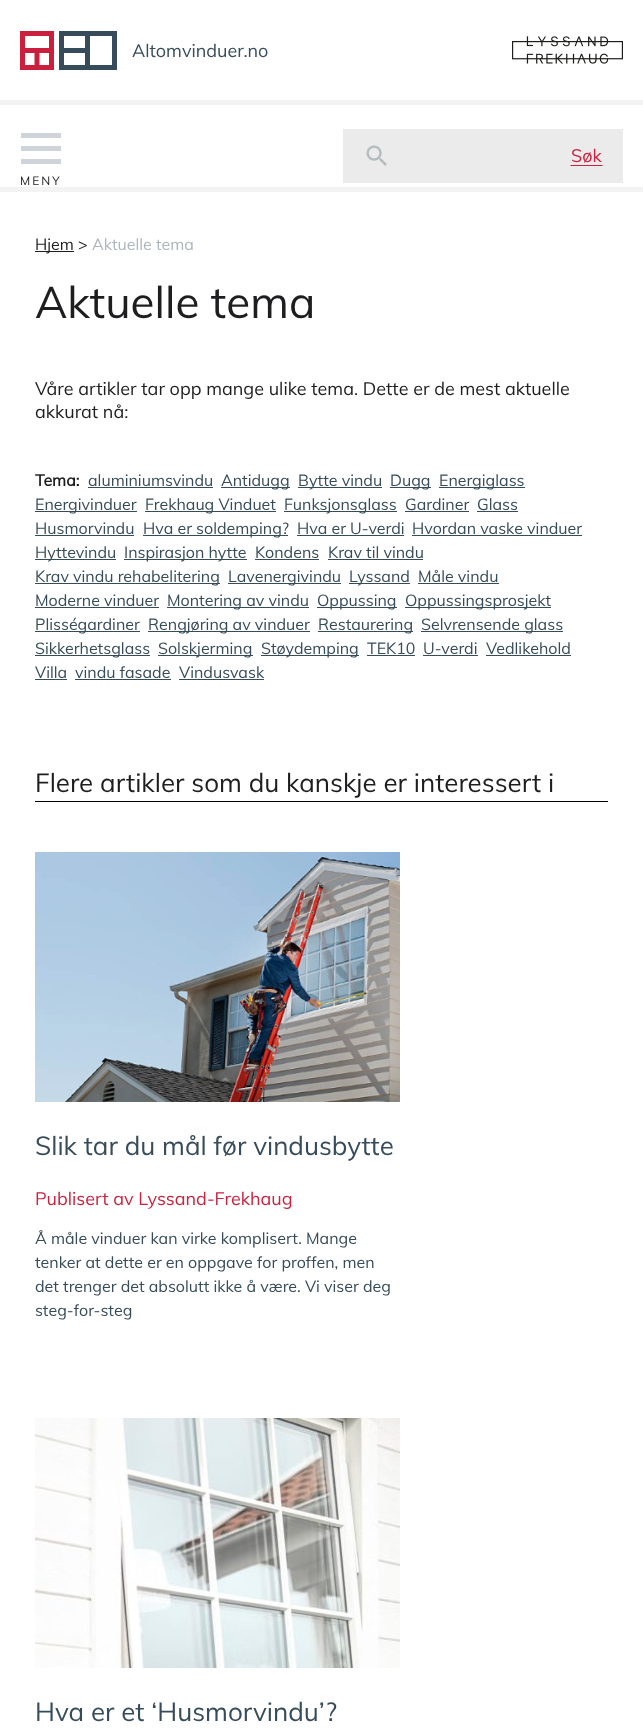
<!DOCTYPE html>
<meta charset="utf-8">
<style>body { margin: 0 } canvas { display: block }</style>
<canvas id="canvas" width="643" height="1730"></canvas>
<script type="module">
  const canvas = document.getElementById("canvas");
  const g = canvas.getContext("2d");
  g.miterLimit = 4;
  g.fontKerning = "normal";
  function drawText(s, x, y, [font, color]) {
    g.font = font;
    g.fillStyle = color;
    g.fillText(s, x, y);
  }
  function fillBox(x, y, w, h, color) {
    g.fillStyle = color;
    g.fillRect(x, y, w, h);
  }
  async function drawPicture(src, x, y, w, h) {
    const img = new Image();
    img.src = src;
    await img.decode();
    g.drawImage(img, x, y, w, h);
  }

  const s1 = ["18px Muli", "#374C5A"];
  const s2 = ["18px Muli", "#C82340"];
  const s3 = ["12px Muli", "#1E1E20"];
  const s4 = ["16px Muli", "#1E1E20"];
  const s5 = ["16px Muli", "#ADB5BD"];
  const s6 = ["44px Muli", "#1E1E20"];
  const s7 = ["18px Muli", "#1E1E20"];
  const s8 = ["bold 16px Muli", "#1E1E20"];
  const s9 = ["16px Muli", "#374C5A"];
  const s10 = ["26px Muli", "#1E1E20"];
  const s11 = ["26px Muli", "#374C5A"];

  fillBox(0, 0, 643, 1730, "#F3F3F3");
  fillBox(0, 0, 643, 100, "#FFFFFF");
  g.fillStyle = "#CA1F3D";
  g.beginPath();
  g.moveTo(20, 31);
  g.lineTo(20, 70);
  g.lineTo(54, 70);
  g.lineTo(54, 31);
  g.closePath();
  g.moveTo(49, 36);
  g.lineTo(49, 48);
  g.lineTo(25, 48);
  g.lineTo(25, 36);
  g.closePath();
  g.moveTo(25, 53);
  g.lineTo(34.5, 53);
  g.lineTo(34.5, 65);
  g.lineTo(25, 65);
  g.closePath();
  g.moveTo(39.5, 65);
  g.lineTo(39.5, 53);
  g.lineTo(49, 53);
  g.lineTo(49, 65);
  g.closePath();
  g.fill();
  g.fillStyle = "#374C5A";
  g.beginPath();
  g.moveTo(59, 31);
  g.lineTo(59, 70);
  g.lineTo(117, 70);
  g.lineTo(117, 31);
  g.closePath();
  g.moveTo(85, 36);
  g.lineTo(85, 48);
  g.lineTo(64, 48);
  g.lineTo(64, 36);
  g.closePath();
  g.moveTo(64, 53);
  g.lineTo(85, 53);
  g.lineTo(85, 65);
  g.lineTo(64, 65);
  g.closePath();
  g.moveTo(112, 65);
  g.lineTo(90, 65);
  g.lineTo(90, 36);
  g.lineTo(112, 36);
  g.closePath();
  g.fill();
  drawText("Altomvinduer.no", 132, 57, s1);
  await drawPicture("pic1.png", 512, 36, 111, 28);
  fillBox(0, 105, 643, 82, "#FFFFFF");
  fillBox(343, 129, 280, 54, "#EBEBEB");
  await drawPicture("pic2.png", 366, 145, 21, 21);
  g.fillStyle = "#C82340";
  g.beginPath();
  g.moveTo(603, 166);
  g.lineTo(570, 166);
  g.lineTo(571, 165);
  g.lineTo(602, 165);
  g.closePath();
  g.fill();
  drawText("Søk", 571, 162, s2);
  fillBox(21, 133, 40, 5, "#CED4DA");
  fillBox(21, 146, 40, 5, "#CED4DA");
  fillBox(21, 159, 40, 5, "#CED4DA");
  g.letterSpacing = "2px";
  drawText("MENY", 20, 185, s3);
  fillBox(0, 192, 643, 1538, "#FFFFFF");
  fillBox(35, 251, 39, 1, "#1E1E20");
  g.letterSpacing = "0px";
  drawText("Hjem >", 35, 250, s4);
  drawText("Aktuelle tema", 92, 250, s5);
  drawText("Aktuelle tema", 35, 318, s6);
  drawText("Våre artikler tar opp mange ulike tema. Dette er de mest aktuelle", 35, 395, s7);
  drawText("akkurat nå:", 35, 418, s7);
  drawText("Tema:", 35, 486, s8);
  drawText("aluminiumsvindu", 88, 486, s9);
  fillBox(88, 487, 125, 1, "#374C5A");
  fillBox(221, 487, 69, 1, "#374C5A");
  drawText("Antidugg", 221, 486, s9);
  fillBox(298, 487, 84, 1, "#374C5A");
  drawText("Bytte vindu", 298, 486, s9);
  fillBox(390, 487, 41, 1, "#374C5A");
  drawText("Dugg", 390, 486, s9);
  fillBox(439, 487, 86, 1, "#374C5A");
  drawText("Energiglass", 439, 486, s9);
  fillBox(35, 511, 102, 1, "#374C5A");
  drawText("Energivinduer", 35, 510, s9);
  fillBox(145, 511, 131, 1, "#374C5A");
  drawText("Frekhaug Vinduet", 145, 510, s9);
  fillBox(284, 511, 113, 1, "#374C5A");
  drawText("Funksjonsglass", 284, 510, s9);
  drawText("Gardiner", 405, 510, s9);
  fillBox(405, 511, 64, 1, "#374C5A");
  drawText("Glass", 477, 510, s9);
  fillBox(477, 511, 41, 1, "#374C5A");
  drawText("Husmorvindu", 35, 534, s9);
  fillBox(35, 535, 99, 1, "#374C5A");
  fillBox(143, 535, 145, 1, "#374C5A");
  drawText("Hva er soldemping?", 143, 534, s9);
  drawText("Hva er U-verdi", 297, 534, s9);
  fillBox(297, 535, 107, 1, "#374C5A");
  drawText("Hvordan vaske vinduer", 412, 534, s9);
  fillBox(412, 535, 170, 1, "#374C5A");
  fillBox(35, 559, 81, 1, "#374C5A");
  drawText("Hyttevindu", 35, 558, s9);
  fillBox(124, 559, 123, 1, "#374C5A");
  drawText("Inspirasjon hytte", 124, 558, s9);
  drawText("Kondens", 255, 558, s9);
  fillBox(255, 559, 64, 1, "#374C5A");
  drawText("Krav til vindu", 328, 558, s9);
  fillBox(328, 559, 95, 1, "#374C5A");
  fillBox(35, 583, 185, 1, "#374C5A");
  drawText("Krav vindu rehabelitering", 35, 582, s9);
  fillBox(228, 583, 113, 1, "#374C5A");
  drawText("Lavenergivindu", 228, 582, s9);
  fillBox(349, 583, 61, 1, "#374C5A");
  drawText("Lyssand", 349, 582, s9);
  drawText("Måle vindu", 418, 582, s9);
  fillBox(418, 583, 81, 1, "#374C5A");
  drawText("Moderne vinduer", 35, 606, s9);
  fillBox(35, 607, 124, 1, "#374C5A");
  fillBox(167, 607, 142, 1, "#374C5A");
  drawText("Montering av vindu", 167, 606, s9);
  fillBox(317, 607, 80, 1, "#374C5A");
  drawText("Oppussing", 317, 606, s9);
  fillBox(405, 607, 146, 1, "#374C5A");
  drawText("Oppussingsprosjekt", 405, 606, s9);
  fillBox(35, 631, 105, 1, "#374C5A");
  drawText("Plisségardiner", 35, 630, s9);
  fillBox(148, 631, 162, 1, "#374C5A");
  drawText("Rengjøring av vinduer", 148, 630, s9);
  fillBox(318, 631, 95, 1, "#374C5A");
  drawText("Restaurering", 318, 630, s9);
  fillBox(421, 631, 142, 1, "#374C5A");
  drawText("Selvrensende glass", 421, 630, s9);
  fillBox(35, 655, 115, 1, "#374C5A");
  drawText("Sikkerhetsglass", 35, 654, s9);
  fillBox(158, 655, 95, 1, "#374C5A");
  drawText("Solskjerming", 158, 654, s9);
  fillBox(261, 655, 98, 1, "#374C5A");
  drawText("Støydemping", 261, 654, s9);
  drawText("TEK10", 367, 654, s9);
  fillBox(367, 655, 48, 1, "#374C5A");
  drawText("U-verdi", 423, 654, s9);
  fillBox(423, 655, 55, 1, "#374C5A");
  drawText("Vedlikehold", 486, 654, s9);
  fillBox(486, 655, 85, 1, "#374C5A");
  drawText("Villa", 35, 678, s9);
  fillBox(35, 679, 32, 1, "#374C5A");
  drawText("vindu fasade", 75, 678, s9);
  fillBox(75, 679, 96, 1, "#374C5A");
  drawText("Vindusvask", 179, 678, s9);
  fillBox(179, 679, 85, 1, "#374C5A");
  fillBox(35, 801, 573, 1, "#000000");
  drawText("Flere artikler som du kanskje er interessert i", 35, 792, s10);
  await drawPicture("pic3.png", 35, 852, 365, 250);
  drawText("Slik tar du mål før vindusbytte", 35, 1155, s11);
  drawText("Publisert av Lyssand-Frekhaug", 35, 1205, s2);
  drawText("Å måle vinduer kan virke komplisert. Mange", 35, 1244, s9);
  drawText("tenker at dette er en oppgave for proffen, men", 35, 1268, s9);
  drawText("det trenger det absolutt ikke å være. Vi viser deg", 35, 1292, s9);
  drawText("steg-for-steg", 35, 1316, s9);
  await drawPicture("pic4.png", 35, 1418, 365, 250);
  drawText("Hva er et ‘Husmorvindu’?", 35, 1721, s11);
</script>
